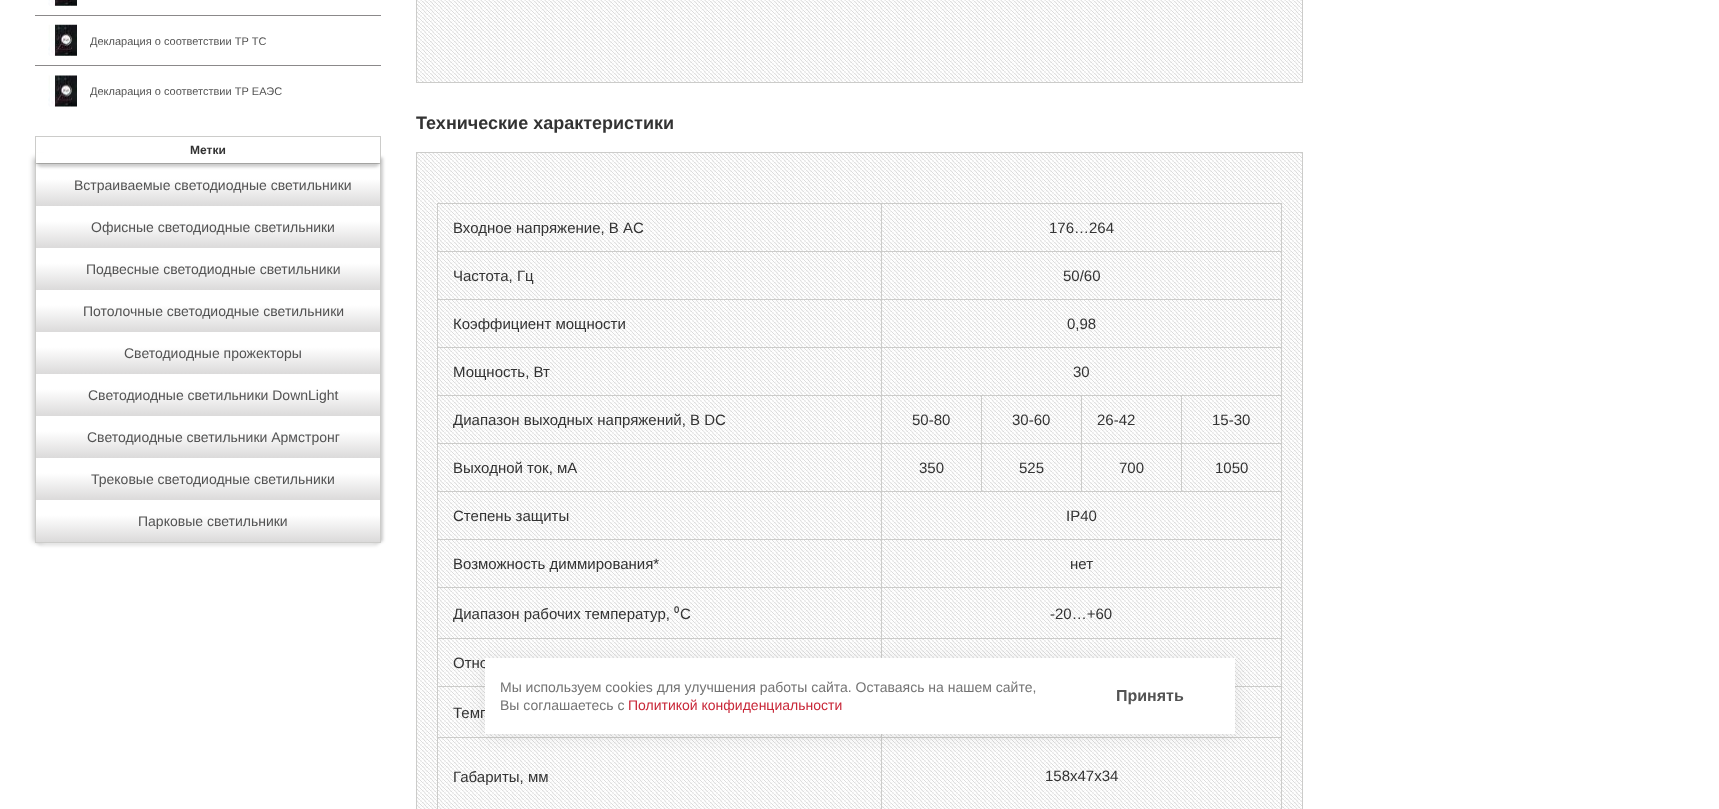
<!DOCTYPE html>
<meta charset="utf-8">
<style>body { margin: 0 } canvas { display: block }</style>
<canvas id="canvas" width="1719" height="809"></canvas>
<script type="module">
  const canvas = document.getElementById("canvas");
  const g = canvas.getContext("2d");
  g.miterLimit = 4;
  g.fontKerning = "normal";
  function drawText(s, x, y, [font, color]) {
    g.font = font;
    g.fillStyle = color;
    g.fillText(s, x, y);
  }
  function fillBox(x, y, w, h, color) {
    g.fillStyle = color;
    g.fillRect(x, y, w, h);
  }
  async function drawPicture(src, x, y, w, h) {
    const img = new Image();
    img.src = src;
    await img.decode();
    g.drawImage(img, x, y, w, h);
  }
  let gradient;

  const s1 = ["11px Liberation Sans", "#535353"];
  const s2 = ["bold 12px Liberation Sans", "#333333"];
  const s3 = ["14px Liberation Sans", "#535353"];
  const s4 = ["bold 18px Liberation Sans", "#333333"];
  const s5 = ["15px Liberation Sans", "#333333"];
  const s6 = ["15px Noto Sans", "#333333"];
  const s7 = ["14px Liberation Sans", "#737373"];
  const s8 = ["14px Liberation Sans", "#C82637"];
  const s9 = ["bold 16px Liberation Sans", "#535353"];

  fillBox(0, 0, 1719, 809, "#FFFFFF");
  fillBox(35, 15, 346, 1, "#8B898A");
  await drawPicture("pic1.png", 48, 0, 29, 6);
  fillBox(35, 65, 346, 1, "#8B898A");
  await drawPicture("pic2.png", 48, 24, 29, 32);
  drawText("Декларация о соответствии ТР ТС", 90, 45, s1);
  await drawPicture("pic3.png", 48, 75, 29, 32);
  drawText("Декларация о соответствии ТР ЕАЭС", 90, 95, s1);
  g.fillStyle = "rgba(0, 0, 0, 0.2)";
  g.filter = "blur(2.5px)";
  g.beginPath();
  g.roundRect(33, 157, 10, 385, 2);
  g.fill();
  g.filter = "none";
  g.filter = "blur(1.5px)";
  g.beginPath();
  g.roundRect(373, 157, 10, 385, 2);
  g.fill();
  g.filter = "none";
  g.fillStyle = "rgba(0, 0, 0, 0.1)";
  g.filter = "blur(1.5px)";
  g.beginPath();
  g.roundRect(36, 536, 344, 10, 5);
  g.fill();
  g.filter = "none";
  g.strokeStyle = "#CCCCCA";
  g.strokeRect(35.5, 136.5, 345, 406);
  fillBox(36, 163, 344, 1, "#CCCCCA");
  gradient = g.createLinearGradient(208, 164, 208, 206);
  gradient.addColorStop(0.36, "#FFFFFF");
  gradient.addColorStop(1, "#DBDADA");
  g.fillStyle = gradient;
  g.fillRect(36, 164, 344, 42);
  g.fillStyle = "rgba(0, 0, 0, 0.2)";
  g.filter = "blur(1.5px)";
  g.beginPath();
  g.roundRect(36, 157, 344, 10, 5);
  g.fill();
  g.filter = "none";
  fillBox(36, 153, 344, 10, "#FFFFFF");
  drawText("Метки", 190, 154, s2);
  drawText("Встраиваемые светодиодные светильники", 74, 190, s3);
  gradient = g.createLinearGradient(208, 206, 208, 248);
  gradient.addColorStop(0.36, "#FFFFFF");
  gradient.addColorStop(1, "#DBDADA");
  g.fillStyle = gradient;
  g.fillRect(36, 206, 344, 42);
  drawText("Офисные светодиодные светильники", 91, 232, s3);
  gradient = g.createLinearGradient(208, 248, 208, 290);
  gradient.addColorStop(0.36, "#FFFFFF");
  gradient.addColorStop(1, "#DBDADA");
  g.fillStyle = gradient;
  g.fillRect(36, 248, 344, 42);
  drawText("Подвесные светодиодные светильники", 86, 274, s3);
  gradient = g.createLinearGradient(208, 290, 208, 332);
  gradient.addColorStop(0.36, "#FFFFFF");
  gradient.addColorStop(1, "#DBDADA");
  g.fillStyle = gradient;
  g.fillRect(36, 290, 344, 42);
  drawText("Потолочные светодиодные светильники", 83, 316, s3);
  gradient = g.createLinearGradient(208, 332, 208, 374);
  gradient.addColorStop(0.36, "#FFFFFF");
  gradient.addColorStop(1, "#DBDADA");
  g.fillStyle = gradient;
  g.fillRect(36, 332, 344, 42);
  drawText("Светодиодные прожекторы", 124, 358, s3);
  gradient = g.createLinearGradient(208, 374, 208, 416);
  gradient.addColorStop(0.36, "#FFFFFF");
  gradient.addColorStop(1, "#DBDADA");
  g.fillStyle = gradient;
  g.fillRect(36, 374, 344, 42);
  drawText("Светодиодные светильники DownLight", 88, 400, s3);
  gradient = g.createLinearGradient(208, 416, 208, 458);
  gradient.addColorStop(0.36, "#FFFFFF");
  gradient.addColorStop(1, "#DBDADA");
  g.fillStyle = gradient;
  g.fillRect(36, 416, 344, 42);
  drawText("Светодиодные светильники Армстронг", 87, 442, s3);
  gradient = g.createLinearGradient(208, 458, 208, 500);
  gradient.addColorStop(0.36, "#FFFFFF");
  gradient.addColorStop(1, "#DBDADA");
  g.fillStyle = gradient;
  g.fillRect(36, 458, 344, 42);
  drawText("Трековые светодиодные светильники", 91, 484, s3);
  gradient = g.createLinearGradient(208, 500, 208, 542);
  gradient.addColorStop(0.36, "#FFFFFF");
  gradient.addColorStop(1, "#DBDADA");
  g.fillStyle = gradient;
  g.fillRect(36, 500, 344, 42);
  drawText("Парковые светильники", 138, 526, s3);
  await drawPicture("pic4.png", 417, 0, 885, 82);
  g.strokeRect(416.5, -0.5, 886, 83);
  drawText("Технические характеристики", 416, 129, s4);
  await drawPicture("pic5.png", 417, 153, 885, 656);
  g.strokeRect(416.5, 152.5, 886, 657);
  fillBox(437, 203, 845, 1, "#CCCCCA");
  fillBox(1281, 203, 1, 606, "#CCCCCA");
  fillBox(437, 203, 1, 606, "#CCCCCA");
  drawText("Входное напряжение, В AC", 453, 233, s5);
  fillBox(881, 251, 401, 1, "#CCCCCA");
  fillBox(881, 299, 401, 1, "#CCCCCA");
  fillBox(881, 347, 401, 1, "#CCCCCA");
  fillBox(1181, 395, 101, 1, "#CCCCCA");
  fillBox(1181, 443, 101, 1, "#CCCCCA");
  fillBox(881, 491, 401, 1, "#CCCCCA");
  fillBox(1181, 443, 1, 49, "#CCCCCA");
  fillBox(1081, 443, 101, 1, "#CCCCCA");
  fillBox(1181, 395, 1, 49, "#CCCCCA");
  fillBox(1081, 395, 101, 1, "#CCCCCA");
  fillBox(1081, 443, 1, 49, "#CCCCCA");
  fillBox(981, 443, 101, 1, "#CCCCCA");
  fillBox(1081, 395, 1, 49, "#CCCCCA");
  fillBox(981, 395, 101, 1, "#CCCCCA");
  fillBox(981, 443, 1, 49, "#CCCCCA");
  fillBox(881, 443, 101, 1, "#CCCCCA");
  fillBox(981, 395, 1, 49, "#CCCCCA");
  fillBox(881, 395, 101, 1, "#CCCCCA");
  fillBox(881, 539, 401, 1, "#CCCCCA");
  fillBox(881, 587, 401, 1, "#CCCCCA");
  fillBox(881, 638, 401, 1, "#CCCCCA");
  fillBox(881, 638, 1, 20, "#CCCCCA");
  fillBox(437, 638, 445, 1, "#CCCCCA");
  fillBox(881, 587, 1, 52, "#CCCCCA");
  fillBox(437, 587, 445, 1, "#CCCCCA");
  fillBox(881, 539, 1, 49, "#CCCCCA");
  fillBox(437, 539, 445, 1, "#CCCCCA");
  fillBox(881, 491, 1, 49, "#CCCCCA");
  fillBox(437, 491, 445, 1, "#CCCCCA");
  fillBox(881, 443, 1, 49, "#CCCCCA");
  fillBox(437, 443, 445, 1, "#CCCCCA");
  fillBox(881, 395, 1, 49, "#CCCCCA");
  fillBox(437, 395, 445, 1, "#CCCCCA");
  fillBox(881, 347, 1, 49, "#CCCCCA");
  fillBox(437, 347, 445, 1, "#CCCCCA");
  fillBox(881, 299, 1, 49, "#CCCCCA");
  fillBox(437, 299, 445, 1, "#CCCCCA");
  fillBox(881, 251, 1, 49, "#CCCCCA");
  fillBox(437, 251, 445, 1, "#CCCCCA");
  fillBox(881, 203, 1, 49, "#CCCCCA");
  drawText("176…264", 1049, 233, s5);
  drawText("Частота, Гц", 453, 281, s5);
  drawText("50/60", 1063, 281, s5);
  drawText("Коэффициент мощности", 453, 329, s5);
  drawText("0,98", 1067, 329, s5);
  drawText("Мощность, Вт", 453, 377, s5);
  drawText("30", 1073, 377, s5);
  drawText("Диапазон выходных напряжений, В DC", 453, 425, s5);
  drawText("50-80", 912, 425, s5);
  drawText("30-60", 1012, 425, s5);
  drawText("26-42", 1097, 425, s5);
  drawText("15-30", 1212, 425, s5);
  drawText("Выходной ток, мА", 453, 473, s5);
  drawText("350", 919, 473, s5);
  drawText("525", 1019, 473, s5);
  drawText("700", 1119, 473, s5);
  drawText("1050", 1215, 473, s5);
  drawText("Степень защиты", 453, 521, s5);
  drawText("IP40", 1066, 521, s5);
  drawText("Возможность диммирования*", 453, 569, s5);
  drawText("нет", 1070, 569, s5);
  drawText("Диапазон рабочих температур,", 453, 619, s5);
  drawText("⁰", 674, 619, s6);
  drawText("C", 680, 619, s5);
  drawText("-20…+60", 1050, 619, s5);
  drawText("Отно", 453, 668, s5);
  fillBox(437, 686, 48, 1, "#CCCCCA");
  drawText("Темп", 453, 718, s5);
  fillBox(1235, 686, 47, 1, "#CCCCCA");
  fillBox(881, 737, 401, 1, "#CCCCCA");
  fillBox(881, 737, 1, 72, "#CCCCCA");
  fillBox(437, 737, 445, 1, "#CCCCCA");
  fillBox(881, 734, 1, 4, "#CCCCCA");
  drawText("Габариты, мм", 453, 782, s5);
  drawText("158х47х34", 1045, 781, s5);
  g.fillStyle = "rgba(29, 30, 28, 0.1)";
  g.filter = "blur(8px)";
  g.beginPath();
  g.rect(485, 660, 750, 76);
  g.fill();
  g.filter = "none";
  fillBox(485, 658, 750, 76, "#FFFFFF");
  drawText("Мы используем cookies для улучшения работы сайта. Оставаясь на нашем сайте,", 500, 692, s7);
  drawText("Вы соглашаетесь с", 500, 710, s7);
  drawText("Политикой конфиденциальности", 628, 710, s8);
  drawText("Принять", 1116, 701, s9);
</script>
